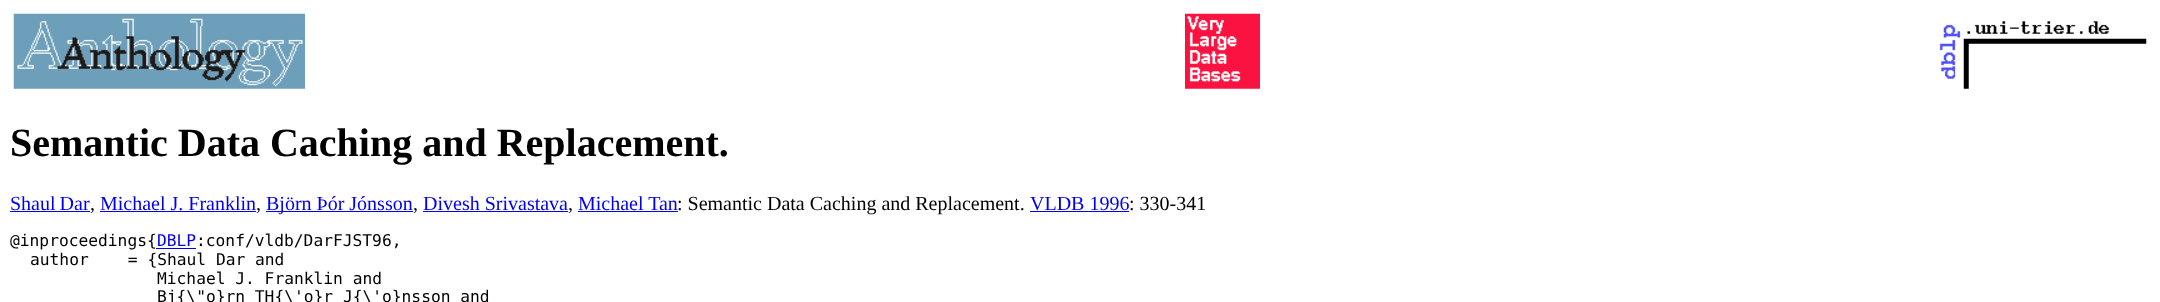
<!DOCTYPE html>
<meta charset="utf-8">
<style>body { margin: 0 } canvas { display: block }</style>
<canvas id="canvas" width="2160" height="302"></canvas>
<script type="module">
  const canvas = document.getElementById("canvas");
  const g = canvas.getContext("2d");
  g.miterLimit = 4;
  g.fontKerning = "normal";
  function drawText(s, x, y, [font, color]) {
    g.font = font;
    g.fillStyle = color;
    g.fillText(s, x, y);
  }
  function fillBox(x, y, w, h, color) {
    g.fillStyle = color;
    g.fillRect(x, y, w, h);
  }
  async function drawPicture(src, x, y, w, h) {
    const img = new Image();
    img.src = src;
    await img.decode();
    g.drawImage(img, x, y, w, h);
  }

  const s1 = ["bold 40px Liberation Serif", "#000000"];
  const s2 = ["20px Liberation Serif", "#0000EE"];
  const s3 = ["20px Liberation Serif", "#000000"];
  const s4 = ["16.25px DejaVu Sans Mono", "#000000"];
  const s5 = ["16.25px DejaVu Sans Mono", "#0000EE"];

  fillBox(0, 0, 2160, 302, "#FFFFFF");
  await drawPicture("pic1.png", 13, 13, 292, 76);
  await drawPicture("pic2.png", 1185, 13, 75, 76);
  await drawPicture("pic3.png", 1939, 21, 208, 68);
  drawText("Semantic Data Caching and Replacement.", 10, 156, s1);
  g.wordSpacing = "-1px";
  drawText("Shaul Dar", 10, 210, s2);
  fillBox(10, 211, 80, 1, "#0000EE");
  g.wordSpacing = "0px";
  drawText(",", 90, 210, s3);
  drawText("Michael J. Franklin", 100, 210, s2);
  fillBox(100, 211, 156, 1, "#0000EE");
  drawText(",", 256, 210, s3);
  fillBox(266, 211, 147, 1, "#0000EE");
  drawText("Björn Þór Jónsson", 266, 210, s2);
  drawText(",", 413, 210, s3);
  drawText("Divesh Srivastava", 423, 210, s2);
  fillBox(423, 211, 145, 1, "#0000EE");
  drawText(",", 568, 210, s3);
  drawText("Michael Tan", 578, 210, s2);
  fillBox(578, 211, 100, 1, "#0000EE");
  drawText(": Semantic Data Caching and Replacement.", 677, 210, s3);
  drawText("VLDB 1996", 1030, 210, s2);
  fillBox(1030, 211, 99, 1, "#0000EE");
  drawText(": 330-341", 1129, 210, s3);
  drawText("@inproceedings{", 10, 246, s4);
  drawText("DBLP", 157, 246, s5);
  fillBox(156, 248, 40, 1, "#0000EE");
  drawText(":conf/vldb/DarFJST96,", 196, 246, s4);
  drawText("author    = {Shaul Dar and", 30, 265, s4);
  drawText("Michael J. Franklin and", 157, 284, s4);
  drawText("Bj{\\\"o}rn TH{\\'o}r J{\\'o}nsson and", 157, 302, s4);
</script>
